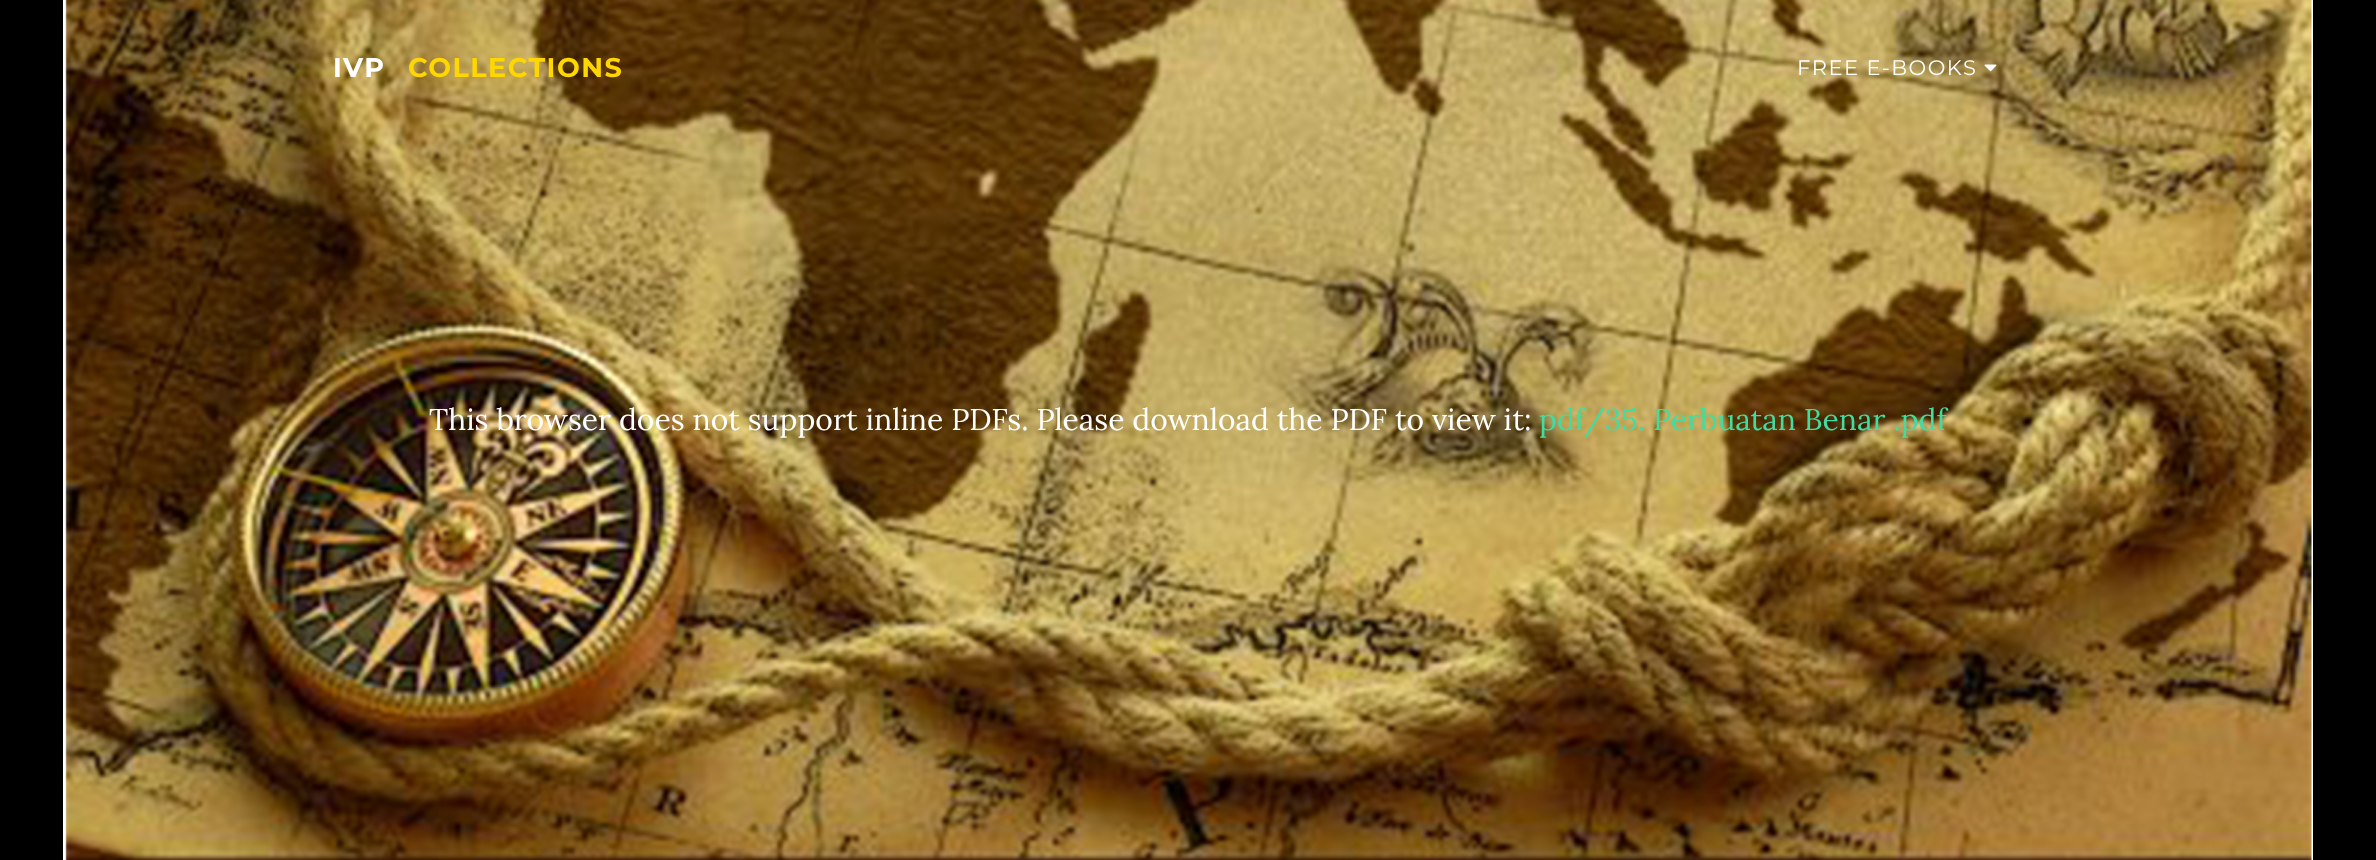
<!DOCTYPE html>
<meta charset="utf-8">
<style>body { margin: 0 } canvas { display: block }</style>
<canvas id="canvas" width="2376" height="860"></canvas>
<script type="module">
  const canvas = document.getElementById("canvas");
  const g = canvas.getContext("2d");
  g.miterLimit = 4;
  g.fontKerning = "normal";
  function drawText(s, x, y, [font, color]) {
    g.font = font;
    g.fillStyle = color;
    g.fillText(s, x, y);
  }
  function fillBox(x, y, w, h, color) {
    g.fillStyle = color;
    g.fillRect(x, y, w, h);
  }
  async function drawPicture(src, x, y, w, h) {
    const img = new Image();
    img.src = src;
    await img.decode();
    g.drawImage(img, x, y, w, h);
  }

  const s1 = ["bold 27px Montserrat", "#FFFFFF"];
  const s2 = ["bold 27px Montserrat", "#FFD700"];
  const s3 = ["21px Montserrat", "#FFFFFF"];
  const s4 = ["30px Lora", "#FFFFFF"];
  const s5 = ["30px Lora", "#42DCA3"];

  fillBox(0, 0, 2376, 860, "#000000");
  await drawPicture("pic2.png", 63, 0, 2250, 860);
  g.letterSpacing = "1.5px";
  drawText("IVP", 333, 77, s1);
  drawText("COLLECTIONS", 408, 77, s2);
  drawText("FREE E-BOOKS", 1797, 75, s3);
  await drawPicture("pic1.png", 1984, 64, 13, 8);
  g.letterSpacing = "0px";
  drawText("This browser does not support inline PDFs. Please download the PDF to view it:", 429, 430, s4);
  drawText("pdf/35. Perbuatan Benar .pdf", 1539, 430, s5);
</script>
